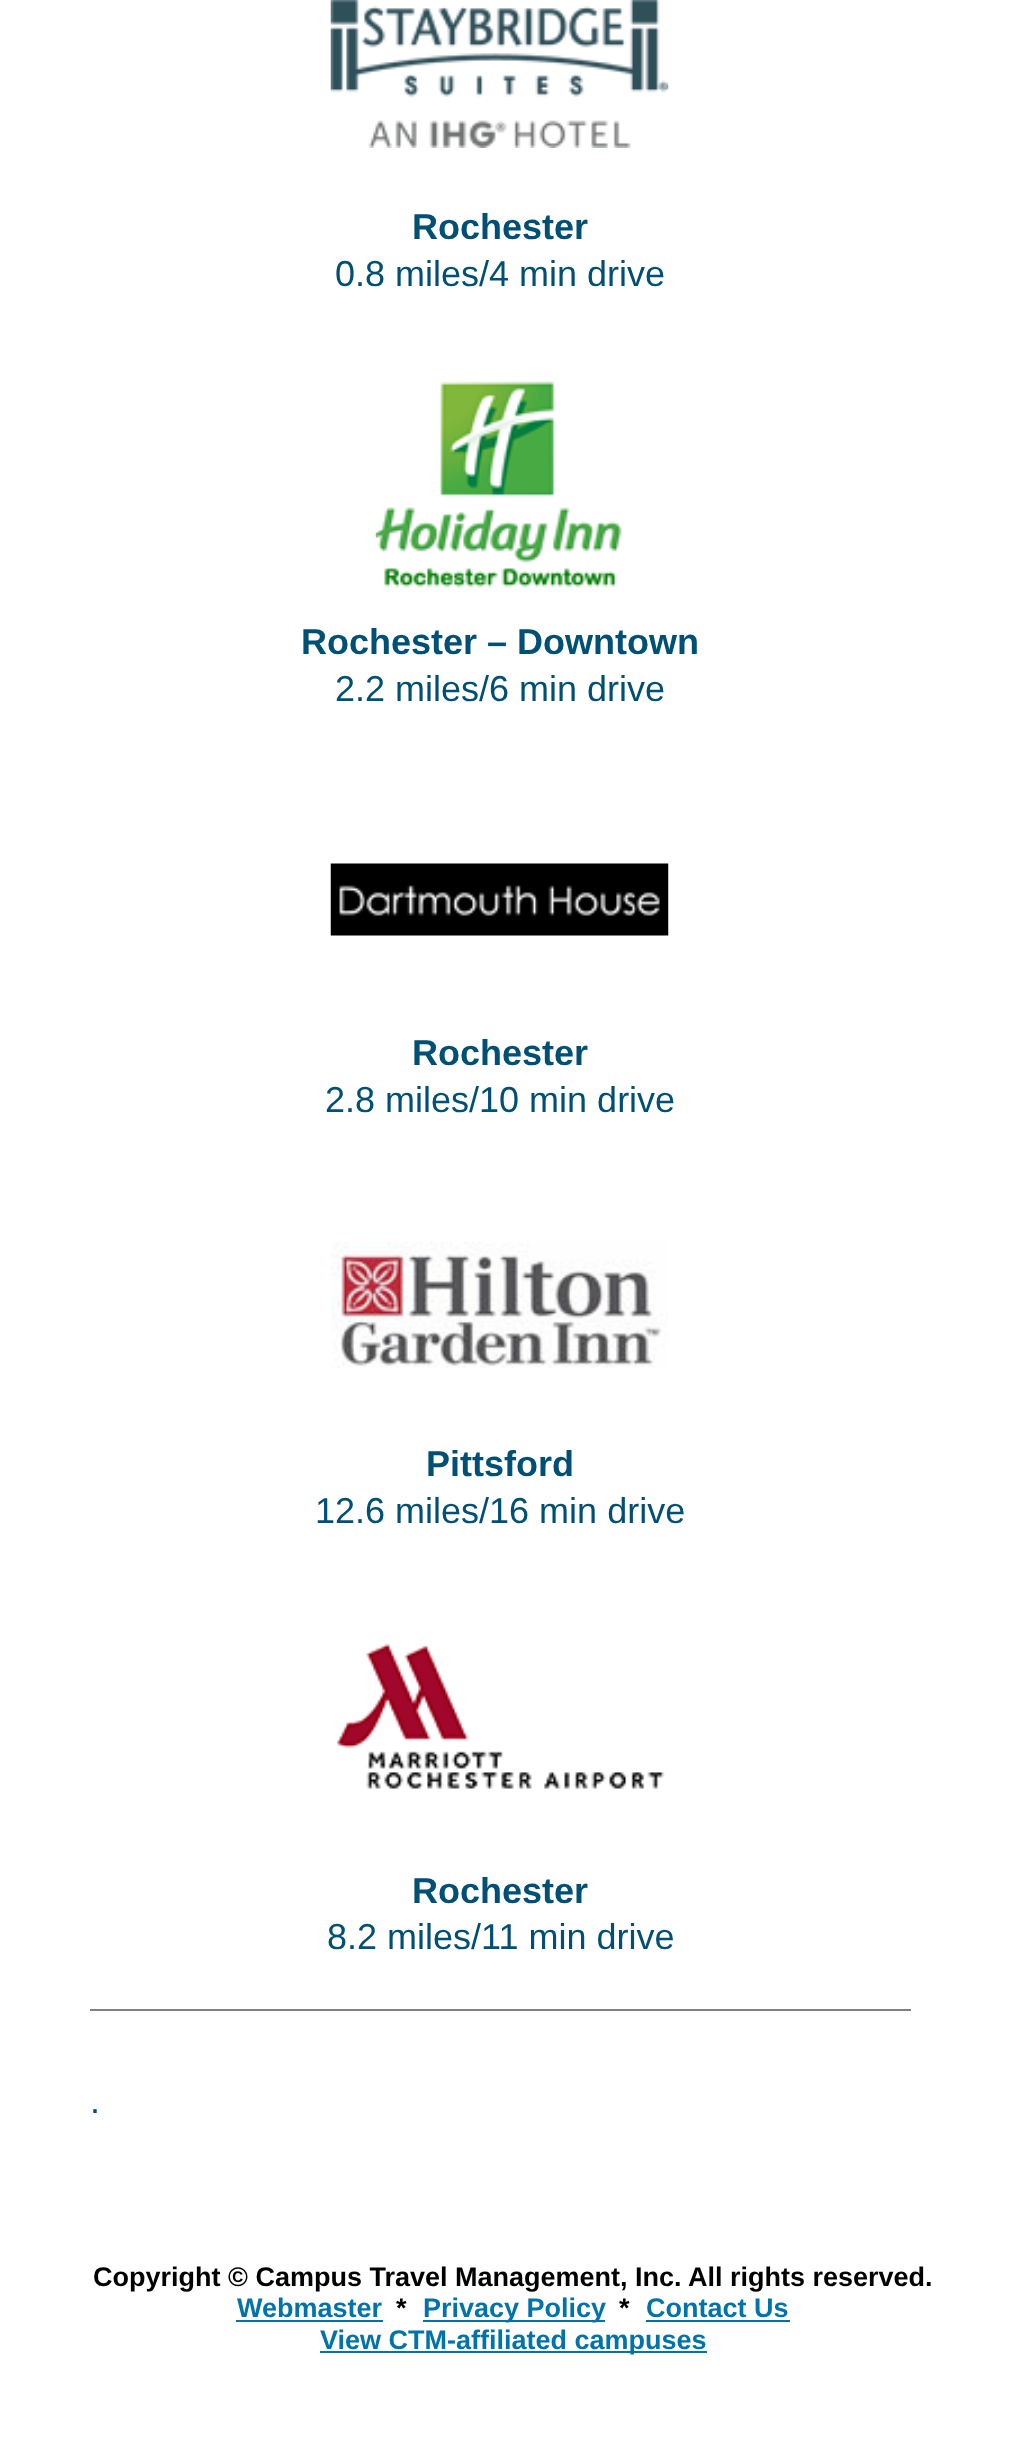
<!DOCTYPE html>
<meta charset="utf-8">
<style>body { margin: 0 } canvas { display: block }</style>
<canvas id="canvas" width="1026" height="2449"></canvas>
<script type="module">
  const canvas = document.getElementById("canvas");
  const g = canvas.getContext("2d");
  g.miterLimit = 4;
  g.fontKerning = "normal";
  function drawText(s, x, y, [font, color]) {
    g.font = font;
    g.fillStyle = color;
    g.fillText(s, x, y);
  }
  function fillBox(x, y, w, h, color) {
    g.fillStyle = color;
    g.fillRect(x, y, w, h);
  }
  async function drawPicture(src, x, y, w, h) {
    const img = new Image();
    img.src = src;
    await img.decode();
    g.drawImage(img, x, y, w, h);
  }

  const s1 = ["bold 36px Liberation Sans", "#004F75"];
  const s2 = ["36px Liberation Sans", "#004F75"];
  const s3 = ["bold 27px Liberation Sans", "#000000"];
  const s4 = ["bold 27px Liberation Sans", "#0073AA"];

  fillBox(0, 0, 1026, 2449, "#FFFFFF");
  fillBox(90, 2009, 821, 2, "#808080");
  await drawPicture("pic1.png", 330, 0, 339, 148);
  drawText("Rochester", 412, 239, s1);
  drawText("0.8 miles/4 min drive", 335, 286, s2);
  await drawPicture("pic2.png", 375, 381, 247, 207);
  drawText("Rochester – Downtown", 301, 654, s1);
  drawText("2.2 miles/6 min drive", 335, 701, s2);
  await drawPicture("pic3.png", 330, 863, 339, 73);
  drawText("Rochester", 412, 1065, s1);
  drawText("2.8 miles/10 min drive", 325, 1112, s2);
  await drawPicture("pic4.png", 331, 1241, 337, 127);
  drawText("Pittsford", 426, 1476, s1);
  drawText("12.6 miles/16 min drive", 315, 1523, s2);
  await drawPicture("pic5.png", 337, 1643, 328, 146);
  drawText("Rochester", 412, 1903, s1);
  drawText("8.2 miles/11 min drive", 327, 1949, s2);
  drawText(".", 90, 2113, s2);
  drawText("Copyright © Campus Travel Management, Inc. All rights reserved.", 93, 2286, s3);
  drawText("Webmaster", 237, 2317, s4);
  fillBox(236, 2320, 147, 2, "#0073AA");
  drawText("*", 396, 2317, s3);
  fillBox(423, 2320, 182, 2, "#0073AA");
  drawText("Privacy Policy", 423, 2317, s4);
  drawText("*", 619, 2317, s3);
  drawText("Contact Us", 646, 2317, s4);
  fillBox(646, 2320, 144, 2, "#0073AA");
  fillBox(320, 2351, 387, 2, "#0073AA");
  drawText("View CTM-affiliated campuses", 320, 2349, s4);
</script>
